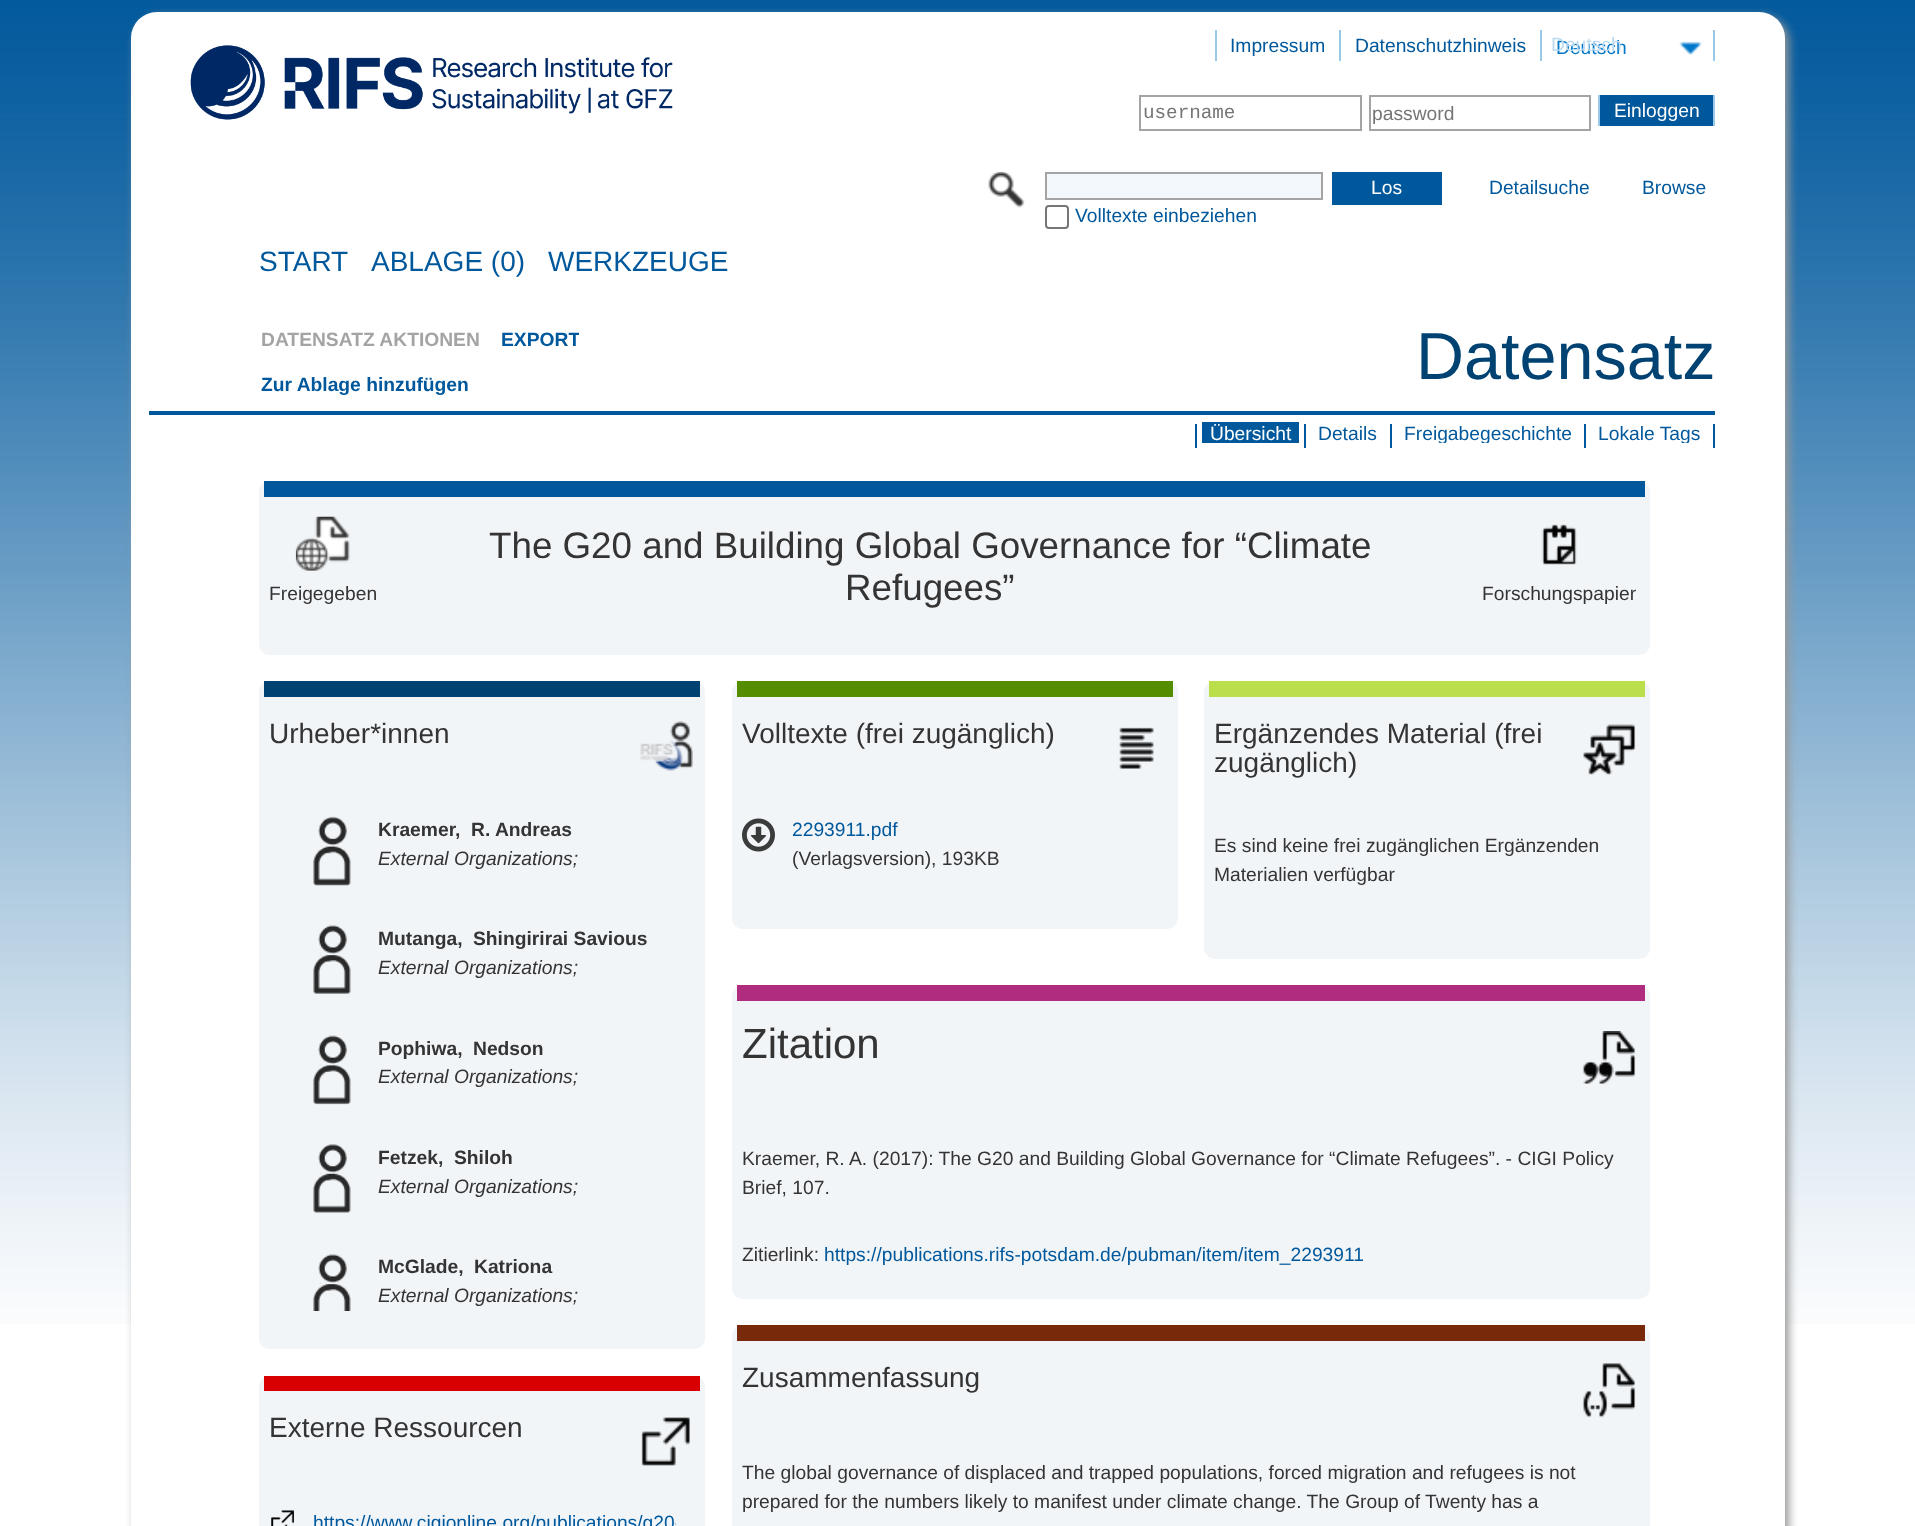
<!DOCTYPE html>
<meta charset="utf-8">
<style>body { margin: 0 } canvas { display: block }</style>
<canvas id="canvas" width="1915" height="1526"></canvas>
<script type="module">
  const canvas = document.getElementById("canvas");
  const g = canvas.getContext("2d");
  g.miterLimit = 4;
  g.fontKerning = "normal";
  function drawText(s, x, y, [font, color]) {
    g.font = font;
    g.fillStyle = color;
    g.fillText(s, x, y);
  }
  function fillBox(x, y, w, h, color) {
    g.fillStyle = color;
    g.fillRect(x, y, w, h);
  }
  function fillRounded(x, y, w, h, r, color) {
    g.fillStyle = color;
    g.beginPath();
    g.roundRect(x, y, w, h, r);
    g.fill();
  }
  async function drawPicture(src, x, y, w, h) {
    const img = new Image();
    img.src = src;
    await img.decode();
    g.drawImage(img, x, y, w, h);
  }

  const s1 = ["19.25px Liberation Sans", "#00589C"];
  const s2 = ["19.25px Liberation Sans", "#0076C9"];
  const s3 = ["19.25px Liberation Sans", "#BCDBF1"];
  const s4 = ["19.25px Liberation Mono", "#757575"];
  const s5 = ["19.25px Liberation Sans", "#757575"];
  const s6 = ["19.25px Liberation Sans", "#FFFFFF"];
  const s7 = ["28px Liberation Sans", "#00589C"];
  const s8 = ["bold 19.25px Liberation Sans", "#A4A4A4"];
  const s9 = ["bold 19.25px Liberation Sans", "#00589C"];
  const s10 = ["66.5px Liberation Sans", "#004373"];
  const s11 = ["19.25px Liberation Sans", "#343434"];
  const s12 = ["36.75px Liberation Sans", "#343434"];
  const s13 = ["28px Liberation Sans", "#343434"];
  const s14 = ["bold 19.25px Liberation Sans", "#343434"];
  const s15 = ["italic 19.25px Liberation Sans", "#343434"];
  const s16 = ["42px Liberation Sans", "#343434"];

  fillBox(0, 0, 1915, 1526, "#FFFFFF");
  await drawPicture("pic1.png", 0, 0, 1915, 1324);
  g.fillStyle = "#999999";
  g.filter = "blur(5px)";
  g.beginPath();
  g.roundRect(135, 16, 1654, 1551, 26);
  g.fill();
  g.filter = "none";
  fillRounded(131, 12, 1654, 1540, 26, "#FFFFFF");
  fillBox(1215, 30, 2, 31, "#99C8E9");
  drawText("Impressum", 1230, 52, s1);
  fillBox(1339, 30, 2, 31, "#99C8E9");
  drawText("Datenschutzhinweis", 1355, 52, s1);
  fillBox(1540, 30, 2, 31, "#99C8E9");
  drawText("Deutsch", 1556, 54, s2);
  drawText("Deutsch", 1551, 51, s3);
  await drawPicture("pic2.png", 1679, 41, 23, 14);
  fillBox(1713, 30, 2, 31, "#99C8E9");
  g.strokeStyle = "#A4A4A4";
  g.lineWidth = 2;
  g.strokeRect(1140, 96, 221, 34);
  drawText("username", 1143, 118, s4);
  g.strokeRect(1370, 96, 220, 34);
  drawText("password", 1372, 120, s5);
  fillBox(1598, 95, 2, 31, "#99C8E9");
  fillBox(1600, 95, 113, 31, "#00589C");
  drawText("Einloggen", 1614, 117, s6);
  fillBox(1713, 95, 2, 31, "#99C8E9");
  await drawPicture("pic3.png", 190, 45, 483, 75);
  await drawPicture("pic4.png", 988, 171, 37, 37);
  fillBox(1332, 172, 110, 33, "#00589C");
  drawText("Los", 1371, 194, s6);
  drawText("Detailsuche", 1489, 194, s1);
  drawText("Browse", 1642, 194, s1);
  g.fillStyle = "#F2F8FC";
  g.beginPath();
  g.rect(1046, 173, 276, 26);
  g.fill();
  g.stroke();
  g.beginPath();
  g.roundRect(1046, 206, 22, 22, 3);
  g.strokeStyle = "#767676";
  g.stroke();
  drawText("Volltexte einbeziehen", 1075, 222, s1);
  drawText("START", 259, 271, s7);
  drawText("ABLAGE (0)", 371, 271, s7);
  drawText("WERKZEUGE", 548, 271, s7);
  drawText("DATENSATZ AKTIONEN", 261, 346, s8);
  g.save();
  g.beginPath();
  g.rect(501, 329, 78, 21);
  g.clip();
  drawText("EXPORT", 501, 346, s9);
  g.restore();
  drawText("Zur Ablage hinzufügen", 261, 391, s9);
  drawText("Datensatz", 1416, 379, s10);
  fillBox(149, 411, 1566, 4, "#00589C");
  fillBox(1195, 424, 2, 24, "#00589C");
  fillBox(1202, 422, 97, 21, "#00589C");
  drawText("Übersicht", 1210, 440, s6);
  fillBox(1304, 424, 2, 24, "#00589C");
  drawText("Details", 1318, 440, s1);
  fillBox(1390, 424, 2, 24, "#00589C");
  g.save();
  g.beginPath();
  g.rect(1397, 422, 182, 21);
  g.clip();
  drawText("Freigabegeschichte", 1404, 440, s1);
  g.restore();
  fillBox(1584, 424, 2, 24, "#00589C");
  g.save();
  g.beginPath();
  g.rect(1591, 422, 117, 21);
  g.clip();
  drawText("Lokale Tags", 1598, 440, s1);
  g.restore();
  fillBox(1713, 424, 2, 24, "#00589C");
  fillRounded(259, 481, 1391, 174, 11, "#F2F5F8");
  fillBox(264, 481, 1381, 16, "#00589C");
  await drawPicture("pic5.png", 295, 516, 55, 55);
  drawText("Freigegeben", 269, 600, s11);
  drawText("The G20 and Building Global Governance for “Climate", 489, 558, s12);
  drawText("Refugees”", 845, 600, s12);
  await drawPicture("pic6.png", 1541, 524, 36, 41);
  drawText("Forschungspapier", 1482, 600, s11);
  fillRounded(259, 681, 446, 668, 11, "#F2F5F8");
  fillBox(264, 681, 436, 16, "#004373");
  drawText("Urheber*innen", 269, 743, s13);
  await drawPicture("pic7.png", 640, 721, 53, 50);
  await drawPicture("pic8.png", 313, 816, 38, 70);
  drawText("Kraemer,", 378, 836, s14);
  drawText("R. Andreas", 471, 836, s14);
  drawText("External Organizations;", 378, 865, s15);
  await drawPicture("pic9.png", 313, 925, 38, 69);
  drawText("Mutanga,", 378, 945, s14);
  drawText("Shingirirai Savious", 473, 945, s14);
  drawText("External Organizations;", 378, 974, s15);
  await drawPicture("pic10.png", 313, 1035, 38, 70);
  drawText("Pophiwa,", 378, 1055, s14);
  drawText("Nedson", 473, 1055, s14);
  drawText("External Organizations;", 378, 1083, s15);
  await drawPicture("pic11.png", 313, 1144, 38, 69);
  drawText("Fetzek,", 378, 1164, s14);
  drawText("Shiloh", 454, 1164, s14);
  drawText("External Organizations;", 378, 1193, s15);
  await drawPicture("pic12.png", 313, 1254, 38, 57);
  drawText("McGlade,", 378, 1273, s14);
  drawText("Katriona", 474, 1273, s14);
  drawText("External Organizations;", 378, 1302, s15);
  fillRounded(259, 1376, 446, 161, 11, "#F2F5F8");
  fillBox(264, 1376, 436, 15, "#D80000");
  drawText("Externe Ressourcen", 269, 1437, s13);
  await drawPicture("pic13.png", 641, 1417, 49, 49);
  await drawPicture("pic14.png", 271, 1510, 23, 16);
  g.save();
  g.beginPath();
  g.rect(313, 1509, 363, 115);
  g.clip();
  drawText("https://www.cigionline.org/publications/g20-", 313, 1529, s1);
  g.restore();
  fillRounded(732, 681, 446, 248, 11, "#F2F5F8");
  fillBox(737, 681, 436, 16, "#548E00");
  drawText("Volltexte (frei zugänglich)", 742, 743, s13);
  await drawPicture("pic15.png", 1119, 727, 35, 42);
  await drawPicture("pic16.png", 742, 818, 33, 34);
  drawText("2293911.pdf", 792, 836, s1);
  drawText("(Verlagsversion), 193KB", 792, 865, s11);
  fillRounded(1204, 681, 446, 278, 11, "#F2F5F8");
  fillBox(1209, 681, 436, 16, "#BADF4A");
  drawText("Ergänzendes Material (frei", 1214, 743, s13);
  await drawPicture("pic17.png", 1583, 724, 53, 51);
  drawText("zugänglich)", 1214, 772, s13);
  drawText("Es sind keine frei zugänglichen Ergänzenden", 1214, 852, s11);
  drawText("Materialien verfügbar", 1214, 881, s11);
  fillRounded(732, 985, 918, 314, 11, "#F2F5F8");
  fillBox(737, 985, 908, 16, "#AF2C7E");
  drawText("Zitation", 742, 1058, s16);
  await drawPicture("pic18.png", 1582, 1031, 54, 53);
  drawText("Kraemer, R. A. (2017): The G20 and Building Global Governance for “Climate Refugees”. - CIGI Policy", 742, 1165, s11);
  drawText("Brief, 107.", 742, 1194, s11);
  drawText("Zitierlink:", 742, 1261, s11);
  drawText("https://publications.rifs-potsdam.de/pubman/item/item_2293911", 824, 1261, s1);
  fillRounded(732, 1325, 918, 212, 11, "#F2F5F8");
  fillBox(737, 1325, 908, 16, "#772909");
  drawText("Zusammenfassung", 742, 1387, s13);
  await drawPicture("pic19.png", 1582, 1363, 54, 55);
  drawText("The global governance of displaced and trapped populations, forced migration and refugees is not", 742, 1479, s11);
  drawText("prepared for the numbers likely to manifest under climate change. The Group of Twenty has a", 742, 1508, s11);
</script>
